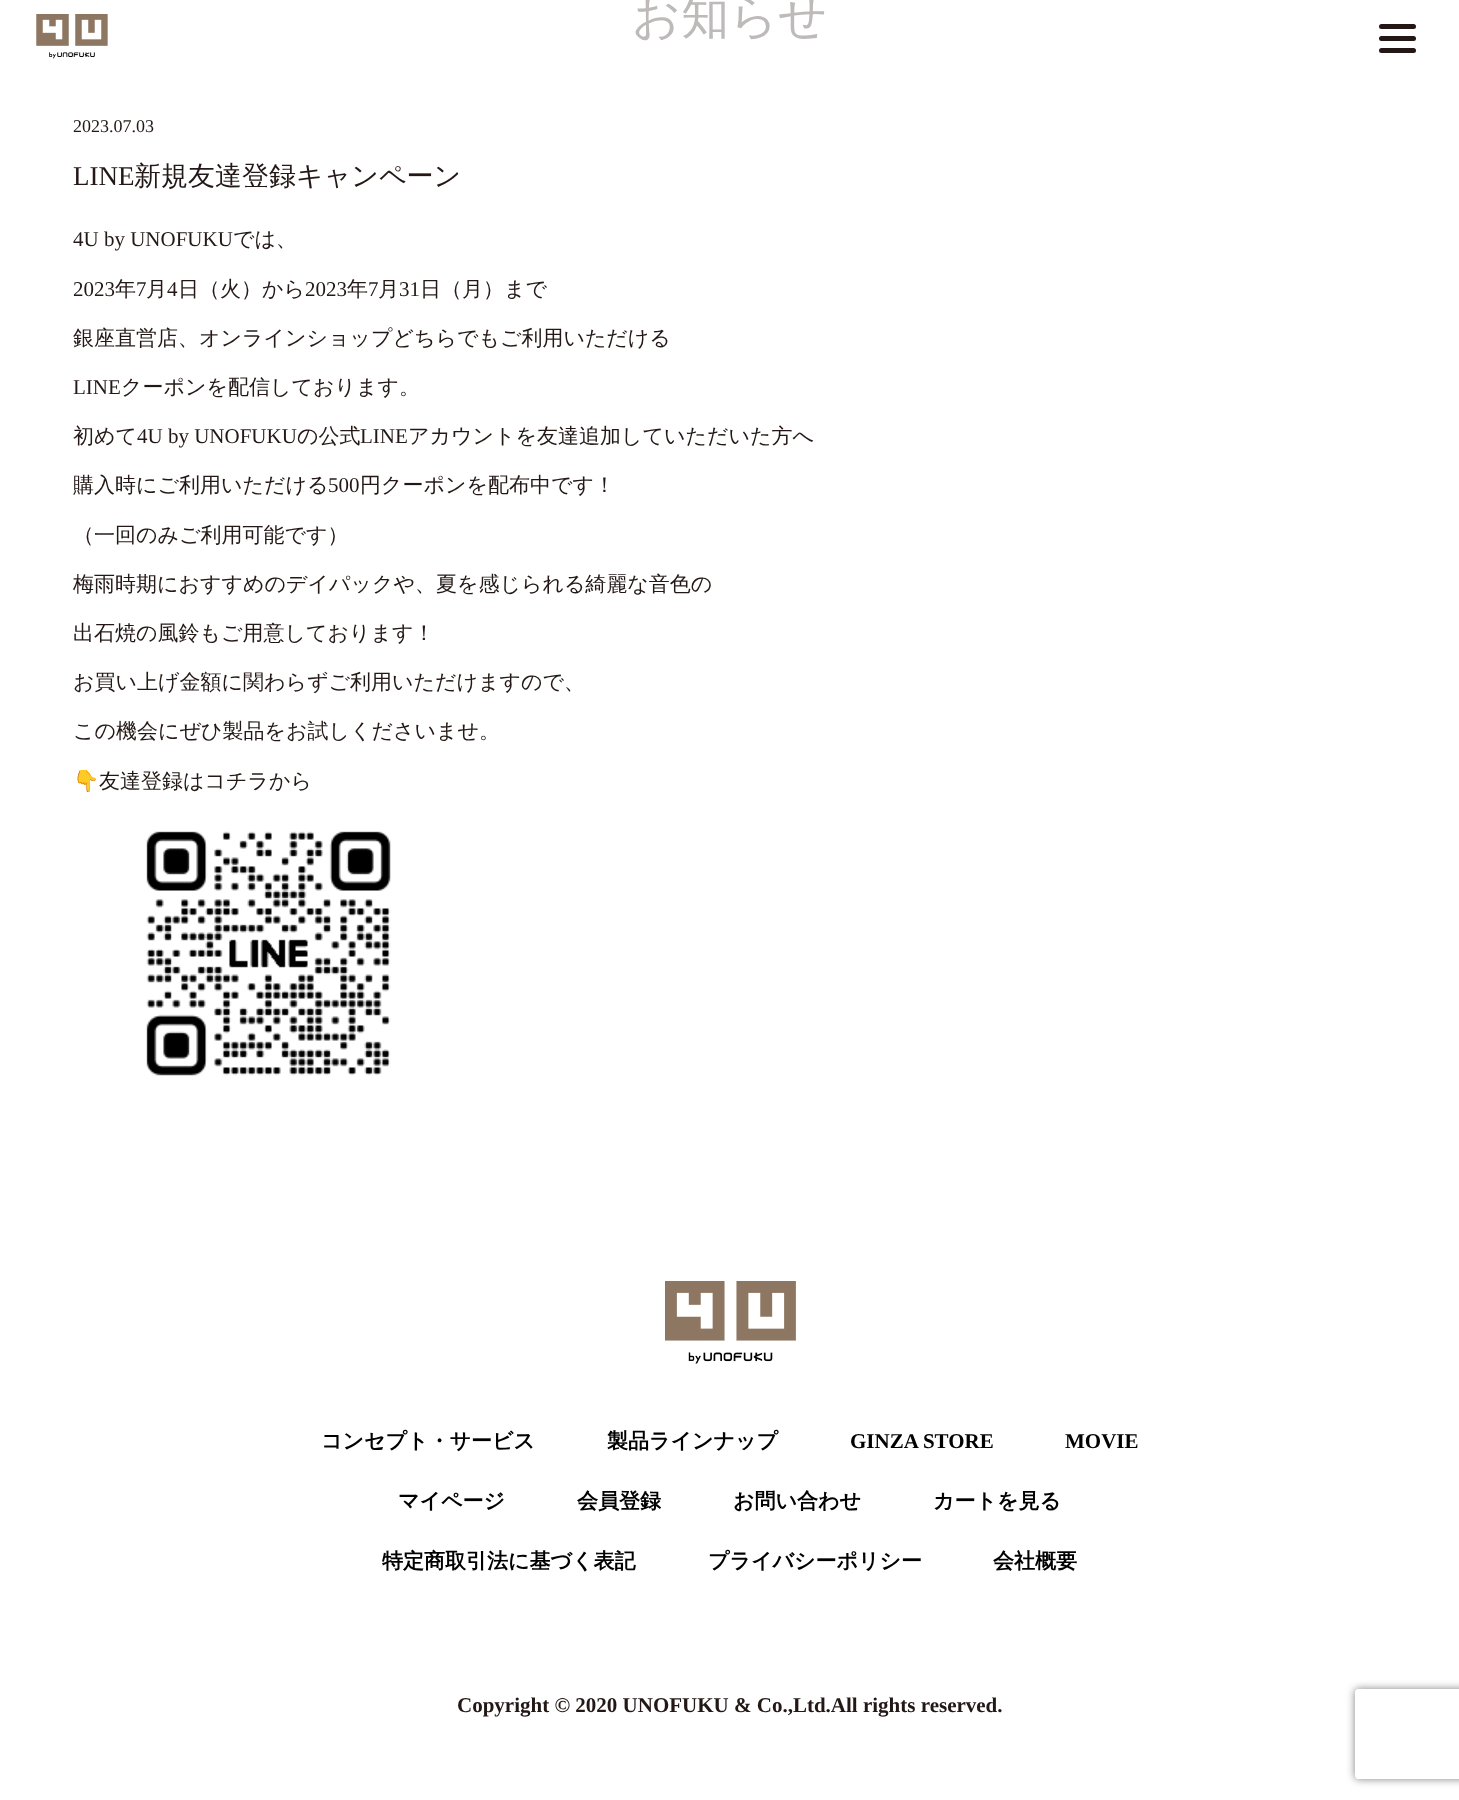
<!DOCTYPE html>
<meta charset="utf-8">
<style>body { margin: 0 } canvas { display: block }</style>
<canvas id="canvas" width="1459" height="1800"></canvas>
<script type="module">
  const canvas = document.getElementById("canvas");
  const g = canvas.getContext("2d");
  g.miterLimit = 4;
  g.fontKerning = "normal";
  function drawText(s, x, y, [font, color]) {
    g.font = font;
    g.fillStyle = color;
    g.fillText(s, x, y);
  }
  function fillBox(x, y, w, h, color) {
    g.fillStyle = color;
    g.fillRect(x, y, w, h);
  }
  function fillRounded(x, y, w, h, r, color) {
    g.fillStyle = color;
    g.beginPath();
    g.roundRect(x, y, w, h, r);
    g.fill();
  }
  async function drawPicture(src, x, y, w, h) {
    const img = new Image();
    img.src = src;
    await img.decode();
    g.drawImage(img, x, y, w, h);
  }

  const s1 = ["500 48px WenQuanYi Zen Hei", "#BDBAB9"];
  const s2 = ["18px Liberation Serif", "#231815"];
  const s3 = ["27px Liberation Serif", "#231815"];
  const s4 = ["500 27px WenQuanYi Zen Hei", "#231815"];
  const s5 = ["21px Liberation Serif", "#231815"];
  const s6 = ["500 21px WenQuanYi Zen Hei", "#231815"];
  const s7 = ["21px Noto Color Emoji", "#231815"];
  const s8 = ["bold 21px WenQuanYi Zen Hei", "#000000"];
  const s9 = ["bold 21px Liberation Serif", "#000000"];
  const s10 = ["bold 21px Liberation Serif", "#231815"];

  fillBox(0, 0, 1459, 1800, "#FFFFFF");
  drawText("お知らせ", 632, 33, s1);
  drawText("2023.07.03", 73, 132, s2);
  drawText("LINE", 73, 185, s3);
  drawText("新規友達登録キャンペーン", 134, 185, s4);
  drawText("4U by UNOFUKU", 73, 246, s5);
  drawText("では、", 233, 246, s6);
  drawText("2023", 73, 296, s5);
  drawText("年", 115, 296, s6);
  drawText("7", 136, 296, s5);
  drawText("月", 146, 296, s6);
  drawText("4", 167, 296, s5);
  drawText("日（火）から", 178, 296, s6);
  drawText("2023", 305, 296, s5);
  drawText("年", 347, 296, s6);
  drawText("7", 368, 296, s5);
  drawText("月", 378, 296, s6);
  drawText("31", 399, 296, s5);
  drawText("日（月）まで", 420, 296, s6);
  drawText("銀座直営店、オンラインショップどちらでもご利用いただける", 73, 345, s6);
  drawText("LINE", 73, 394, s5);
  drawText("クーポンを配信しております。", 121, 394, s6);
  drawText("初めて", 73, 443, s6);
  drawText("4U by UNOFUKU", 137, 443, s5);
  drawText("の公式", 297, 443, s6);
  drawText("LINE", 360, 443, s5);
  drawText("アカウントを友達追加していただいた方へ", 408, 443, s6);
  drawText("購入時にご利用いただける", 73, 492, s6);
  drawText("500", 328, 492, s5);
  drawText("円クーポンを配布中です！", 360, 492, s6);
  drawText("（一回のみご利用可能です）", 73, 542, s6);
  drawText("梅雨時期におすすめのデイパックや、夏を感じられる綺麗な音色の", 73, 591, s6);
  drawText("出石焼の風鈴もご用意しております！", 73, 640, s6);
  drawText("お買い上げ金額に関わらずご利用いただけますので、", 73, 689, s6);
  drawText("この機会にぜひ製品をお試しくださいませ。", 73, 738, s6);
  drawText("👇", 73, 788, s7);
  drawText("友達登録はコチラから", 99, 788, s6);
  await drawPicture("pic1.png", 146, 831, 245, 245);
  await drawPicture("pic2.png", 36, 14, 72, 45);
  fillRounded(1379, 24, 37, 5, 2.5, "#231815");
  fillRounded(1379, 36, 37, 5, 2.5, "#231815");
  fillRounded(1379, 48, 37, 5, 2.5, "#231815");
  await drawPicture("pic3.png", 665, 1281, 131, 83);
  drawText("コンセプト・サービス", 321, 1448, s8);
  drawText("製品ラインナップ", 607, 1448, s8);
  drawText("GINZA STORE", 850, 1448, s9);
  drawText("MOVIE", 1065, 1448, s9);
  drawText("マイページ", 398, 1508, s8);
  drawText("会員登録", 577, 1508, s8);
  drawText("お問い合わせ", 733, 1508, s8);
  drawText("カートを⾒る", 933, 1508, s8);
  drawText("特定商取引法に基づく表記", 382, 1568, s8);
  drawText("プライバシーポリシー", 708, 1568, s8);
  drawText("会社概要", 993, 1568, s8);
  drawText("Copyright © 2020 UNOFUKU & Co.,Ltd.All rights reserved.", 457, 1712, s10);
  g.save();
  g.beginPath();
  g.moveTo(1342, 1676);
  g.lineTo(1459, 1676);
  g.lineTo(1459, 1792);
  g.lineTo(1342, 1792);
  g.closePath();
  g.moveTo(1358, 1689);
  g.lineTo(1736, 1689);
  g.bezierCurveTo(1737.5, 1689, 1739, 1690.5, 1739, 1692);
  g.lineTo(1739, 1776);
  g.bezierCurveTo(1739, 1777.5, 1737.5, 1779, 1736, 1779);
  g.lineTo(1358, 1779);
  g.bezierCurveTo(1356.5, 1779, 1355, 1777.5, 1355, 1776);
  g.lineTo(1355, 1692);
  g.bezierCurveTo(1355, 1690.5, 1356.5, 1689, 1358, 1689);
  g.closePath();
  g.clip("evenodd");
  g.fillStyle = "#808080";
  g.filter = "blur(4px)";
  g.beginPath();
  g.roundRect(1355, 1689, 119, 90, 3);
  g.fill();
  g.filter = "none";
  g.restore();
</script>
